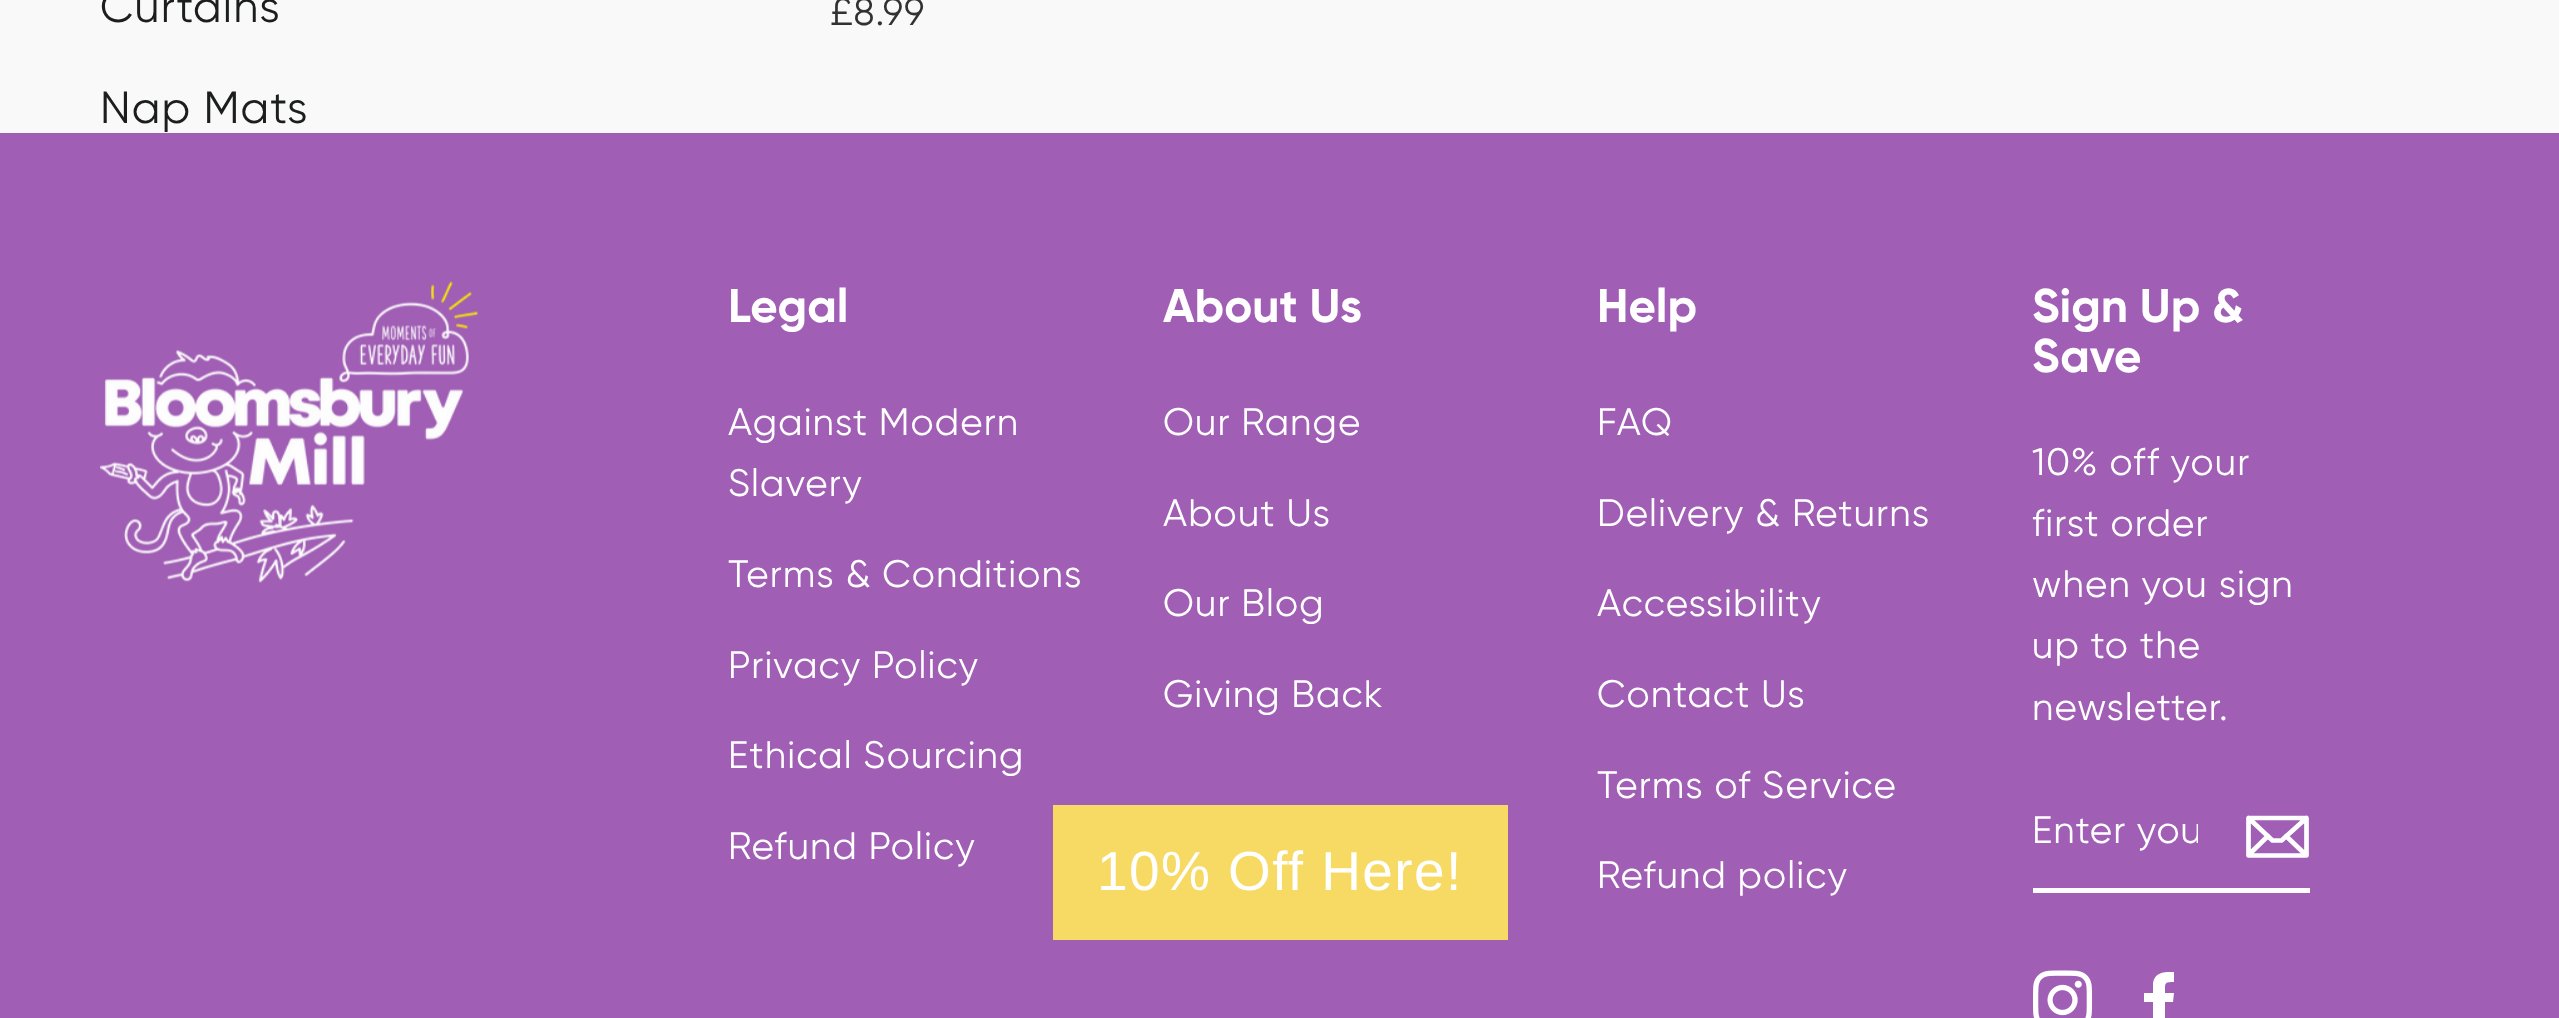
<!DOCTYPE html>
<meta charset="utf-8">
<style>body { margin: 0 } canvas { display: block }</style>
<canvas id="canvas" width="2559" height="1018"></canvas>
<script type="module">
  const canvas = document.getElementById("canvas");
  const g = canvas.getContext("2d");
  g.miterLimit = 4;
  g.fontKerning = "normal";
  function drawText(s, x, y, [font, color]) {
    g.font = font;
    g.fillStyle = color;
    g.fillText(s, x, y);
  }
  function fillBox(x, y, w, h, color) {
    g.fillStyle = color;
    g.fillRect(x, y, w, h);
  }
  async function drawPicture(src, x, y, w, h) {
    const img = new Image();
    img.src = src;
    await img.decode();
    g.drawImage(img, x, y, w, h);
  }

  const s1 = ["45px Gilroy", "#1C1D1D"];
  const s2 = ["38.25px Gilroy", "#323232"];
  const s3 = ["bold 47.25px Gilroy", "#FFFFFF"];
  const s4 = ["38.25px Gilroy", "#FFFFFF"];
  const s5 = ["55px Liberation Sans", "#FFFFFF"];

  fillBox(0, 0, 2559, 1018, "#F9F9F9");
  g.letterSpacing = "1.1px";
  drawText("Curtains", 100, 22, s1);
  drawText("Nap Mats", 100, 123, s1);
  drawText("£8.99", 830, 25, s2);
  fillBox(0, 133, 2559, 885, "#A05EB5");
  await drawPicture("pic1.png", 100, 281, 378, 302);
  g.letterSpacing = "0px";
  drawText("Legal", 728, 322, s3);
  g.letterSpacing = "1.1px";
  drawText("Against Modern", 728, 435, s4);
  drawText("Slavery", 728, 496, s4);
  drawText("Terms & Conditions", 728, 587, s4);
  drawText("Privacy Policy", 728, 678, s4);
  drawText("Ethical Sourcing", 728, 768, s4);
  drawText("Refund Policy", 728, 859, s4);
  g.letterSpacing = "0px";
  drawText("About Us", 1163, 322, s3);
  g.letterSpacing = "1.1px";
  drawText("Our Range", 1163, 435, s4);
  drawText("About Us", 1163, 526, s4);
  drawText("Our Blog", 1163, 616, s4);
  drawText("Giving Back", 1163, 707, s4);
  g.letterSpacing = "0px";
  drawText("Help", 1597, 322, s3);
  g.letterSpacing = "1.1px";
  drawText("FAQ", 1597, 435, s4);
  drawText("Delivery & Returns", 1597, 526, s4);
  drawText("Accessibility", 1597, 616, s4);
  drawText("Contact Us", 1597, 707, s4);
  drawText("Terms of Service", 1597, 798, s4);
  drawText("Refund policy", 1597, 888, s4);
  g.letterSpacing = "0px";
  drawText("Sign Up &", 2032, 322, s3);
  drawText("Save", 2032, 372, s3);
  g.letterSpacing = "1.1px";
  drawText("10% off your", 2032, 475, s4);
  drawText("first order", 2032, 536, s4);
  drawText("when you sign", 2032, 597, s4);
  drawText("up to the", 2032, 658, s4);
  drawText("newsletter.", 2032, 720, s4);
  fillBox(2033, 888, 277, 5, "#FFFFFF");
  g.save();
  g.beginPath();
  g.rect(2033, 805, 165, 48);
  g.clip();
  g.letterSpacing = "1px";
  drawText("Enter you", 2032, 843, s4);
  g.restore();
  g.beginPath();
  g.moveTo(2306.5, 855.5);
  g.lineTo(2248.5, 855.5);
  g.lineTo(2248.5, 818);
  g.lineTo(2306.5, 818);
  g.closePath();
  g.moveTo(2248.5, 818);
  g.lineTo(2272.5, 840.5);
  g.lineTo(2281.5, 840.5);
  g.lineTo(2306.5, 818);
  g.moveTo(2268, 836);
  g.lineTo(2249, 854.5);
  g.moveTo(2306, 855);
  g.lineTo(2286, 836);
  g.strokeStyle = "#FFFFFF";
  g.lineWidth = 4.7;
  g.lineCap = "round";
  g.lineJoin = "round";
  g.stroke();
  await drawPicture("pic2.png", 2033, 970, 60, 48);
  g.beginPath();
  g.moveTo(2165, 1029);
  g.lineTo(2165, 1002);
  g.lineTo(2173, 1002);
  g.lineTo(2174, 993);
  g.lineTo(2165, 993);
  g.bezierCurveTo(2165, 983, 2164, 982, 2174, 982);
  g.lineTo(2174, 972);
  g.bezierCurveTo(2166, 972, 2155, 971, 2153, 983);
  g.lineTo(2153, 993);
  g.lineTo(2144, 993);
  g.lineTo(2144, 1002);
  g.lineTo(2153, 1002);
  g.lineTo(2153, 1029);
  g.closePath();
  g.fill();
  fillBox(1053, 805, 455, 135, "#F7DA64");
  g.letterSpacing = "1.4px";
  drawText("10% Off Here!", 1097, 890, s5);
</script>
